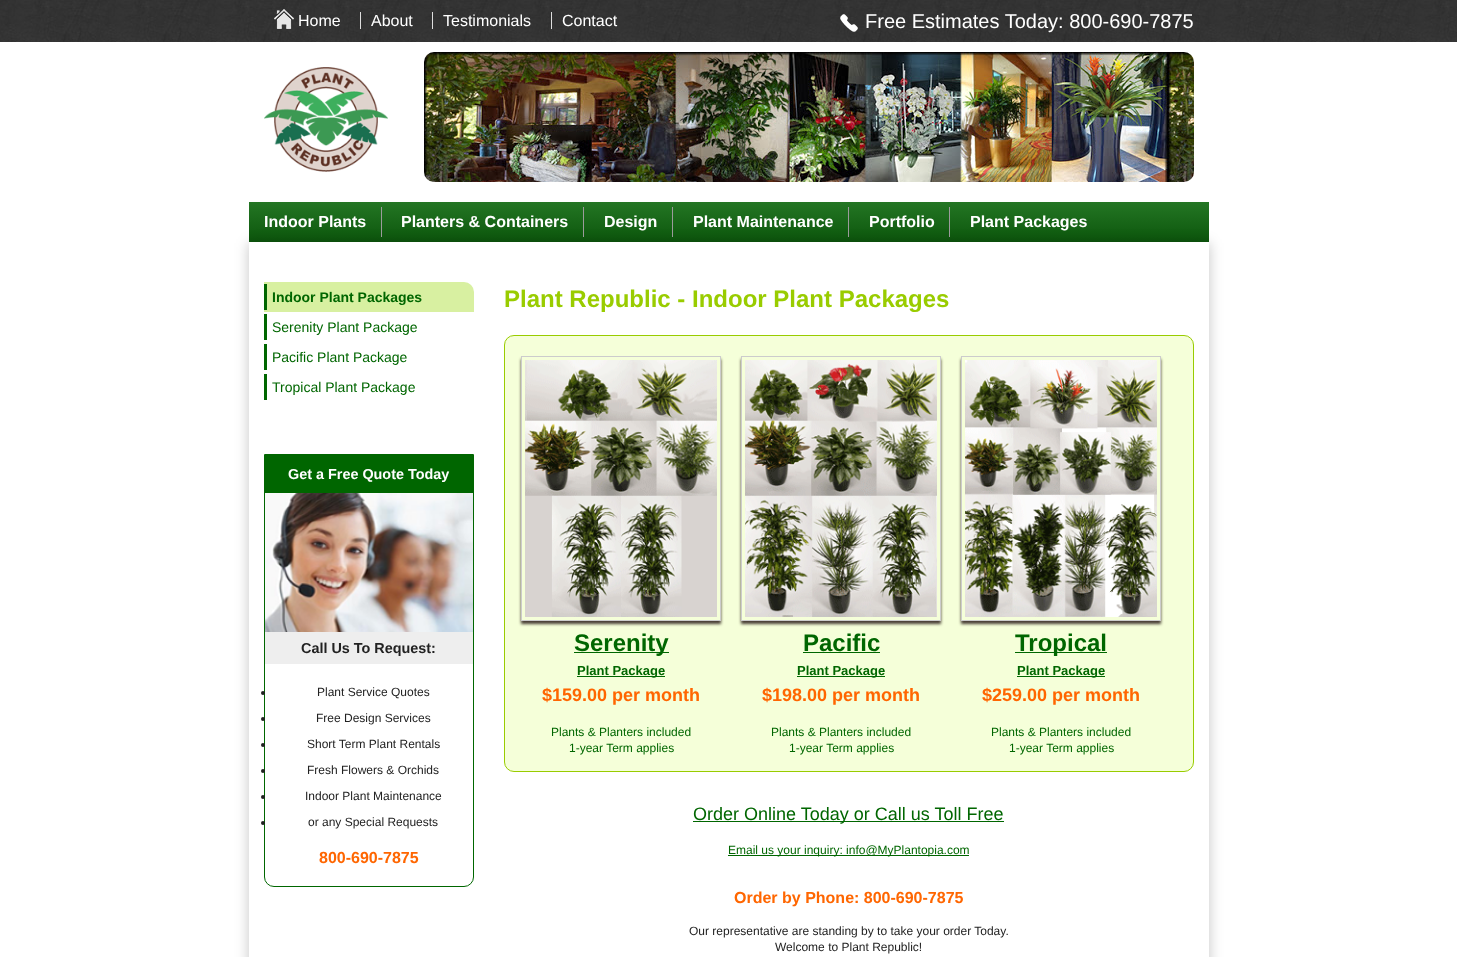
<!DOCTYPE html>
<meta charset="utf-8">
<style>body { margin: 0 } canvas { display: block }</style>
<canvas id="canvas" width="1457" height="957"></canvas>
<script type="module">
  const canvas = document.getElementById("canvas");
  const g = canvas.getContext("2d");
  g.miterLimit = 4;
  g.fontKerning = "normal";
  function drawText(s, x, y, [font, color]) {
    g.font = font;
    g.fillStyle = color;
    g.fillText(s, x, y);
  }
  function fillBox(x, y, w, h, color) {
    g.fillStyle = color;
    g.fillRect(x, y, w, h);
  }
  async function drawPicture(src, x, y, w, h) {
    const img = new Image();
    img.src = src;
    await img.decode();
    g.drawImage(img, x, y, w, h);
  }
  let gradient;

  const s1 = ["16px Liberation Sans", "#FFFFFF"];
  const s2 = ["20px Liberation Sans", "#FFFFFF"];
  const s3 = ["bold 16px Liberation Sans", "#FFFFFF"];
  const s4 = ["bold 14px Liberation Sans", "#006600"];
  const s5 = ["14px Liberation Sans", "#006600"];
  const s6 = ["bold 14.4px Liberation Sans", "#FFFFFF"];
  const s7 = ["bold 14.4px Liberation Sans", "#222222"];
  const s8 = ["12px Liberation Sans", "#222222"];
  const s9 = ["bold 16px Liberation Sans", "#FF6600"];
  const s10 = ["bold 24px Liberation Sans", "#99CC00"];
  const s11 = ["bold 24px Liberation Sans", "#006600"];
  const s12 = ["bold 13px Liberation Sans", "#006600"];
  const s13 = ["bold 18px Liberation Sans", "#FF6600"];
  const s14 = ["12px Liberation Sans", "#006600"];
  const s15 = ["18px Liberation Sans", "#006600"];

  fillBox(0, 0, 1457, 957, "#FFFFFF");
  await drawPicture("pic1.png", 0, 0, 1457, 42);
  await drawPicture("pic2.png", 274, 9, 20, 20);
  drawText("Home", 298, 26, s1);
  drawText("About", 371, 26, s1);
  fillBox(360, 12, 1, 17, "#DEDEDE");
  drawText("Testimonials", 443, 26, s1);
  fillBox(432, 12, 1, 17, "#DEDEDE");
  drawText("Contact", 562, 26, s1);
  fillBox(551, 12, 1, 17, "#DEDEDE");
  await drawPicture("pic3.png", 840, 14, 18, 18);
  drawText("Free Estimates Today: 800-690-7875", 865, 28, s2);
  await drawPicture("pic4.png", 264, 67, 124, 105);
  await drawPicture("pic5.png", 424, 52, 770, 130);
  gradient = g.createLinearGradient(729, 202, 729, 242);
  gradient.addColorStop(0, "#247624");
  gradient.addColorStop(1, "#0C560C");
  g.fillStyle = gradient;
  g.fillRect(249, 202, 960, 40);
  g.save();
  g.beginPath();
  g.moveTo(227, 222);
  g.lineTo(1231, 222);
  g.lineTo(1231, 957);
  g.lineTo(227, 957);
  g.closePath();
  g.moveTo(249, 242);
  g.lineTo(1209, 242);
  g.lineTo(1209, 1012);
  g.lineTo(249, 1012);
  g.closePath();
  g.clip("evenodd");
  g.fillStyle = "rgba(0, 0, 0, 0.2)";
  g.filter = "blur(6.5px)";
  g.beginPath();
  g.rect(248, 243, 962, 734);
  g.fill();
  g.filter = "none";
  g.restore();
  fillBox(381, 207, 1, 30, "#9B9B9B");
  drawText("Indoor Plants", 264, 227, s3);
  fillBox(583, 207, 1, 30, "#9B9B9B");
  drawText("Planters & Containers", 401, 227, s3);
  fillBox(672, 207, 1, 30, "#9B9B9B");
  drawText("Design", 604, 227, s3);
  fillBox(848, 207, 1, 30, "#9B9B9B");
  drawText("Plant Maintenance", 693, 227, s3);
  fillBox(949, 207, 1, 30, "#9B9B9B");
  drawText("Portfolio", 869, 227, s3);
  drawText("Plant Packages", 970, 227, s3);
  g.fillStyle = "#D8F0A1";
  g.beginPath();
  g.roundRect(264, 282, 210, 30, [0, 10, 0, 0]);
  g.fill();
  drawText("Indoor Plant Packages", 272, 302, s4);
  fillBox(264, 284, 3, 26, "#006600");
  drawText("Serenity Plant Package", 272, 332, s5);
  fillBox(264, 314, 3, 26, "#006600");
  drawText("Pacific Plant Package", 272, 362, s5);
  fillBox(264, 344, 3, 26, "#006600");
  drawText("Tropical Plant Package", 272, 392, s5);
  fillBox(264, 374, 3, 26, "#006600");
  g.beginPath();
  g.roundRect(264.5, 454.5, 209, 432, [0, 0, 9.5, 9.5]);
  g.strokeStyle = "#006600";
  g.stroke();
  fillBox(265, 455, 208, 38, "#006600");
  drawText("Get a Free Quote Today", 288, 479, s6);
  await drawPicture("pic6.png", 265, 493, 208, 139);
  fillBox(265, 632, 208, 32, "#EEEEEE");
  drawText("Call Us To Request:", 301, 653, s7);
  g.beginPath();
  g.arc(263, 693, 2, 0, Math.PI * 2);
  g.fill();
  drawText("Plant Service Quotes", 317, 696, s8);
  g.beginPath();
  g.arc(263, 719, 2, 0, Math.PI * 2);
  g.fill();
  drawText("Free Design Services", 316, 722, s8);
  g.beginPath();
  g.arc(263, 745, 2, 0, Math.PI * 2);
  g.fill();
  drawText("Short Term Plant Rentals", 307, 748, s8);
  g.beginPath();
  g.arc(263, 771, 2, 0, Math.PI * 2);
  g.fill();
  drawText("Fresh Flowers & Orchids", 307, 774, s8);
  g.beginPath();
  g.arc(263, 797, 2, 0, Math.PI * 2);
  g.fill();
  drawText("Indoor Plant Maintenance", 305, 800, s8);
  g.beginPath();
  g.arc(263, 823, 2, 0, Math.PI * 2);
  g.fill();
  drawText("or any Special Requests", 308, 826, s8);
  drawText("800-690-7875", 319, 863, s9);
  drawText("Plant Republic - Indoor Plant Packages", 504, 307, s10);
  g.fillStyle = "#F5FFD9";
  g.beginPath();
  g.roundRect(504.5, 335.5, 689, 436, 9.5);
  g.fill();
  g.strokeStyle = "#99CC00";
  g.stroke();
  g.save();
  g.beginPath();
  g.moveTo(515, 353);
  g.lineTo(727, 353);
  g.lineTo(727, 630);
  g.lineTo(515, 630);
  g.closePath();
  g.moveTo(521, 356);
  g.lineTo(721, 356);
  g.lineTo(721, 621);
  g.lineTo(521, 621);
  g.closePath();
  g.clip("evenodd");
  g.fillStyle = "#483D35";
  g.filter = "blur(1.5px)";
  g.beginPath();
  g.rect(521, 359, 200, 265);
  g.fill();
  g.filter = "none";
  g.restore();
  g.strokeStyle = "#CCCCCC";
  g.strokeRect(521.5, 356.5, 199, 264);
  await drawPicture("pic7.png", 525, 360, 192, 257);
  fillBox(574, 652, 95, 1, "#006600");
  drawText("Serenity", 574, 651, s11);
  fillBox(577, 676, 88, 1, "#006600");
  drawText("Plant Package", 577, 675, s12);
  drawText("$159.00 per month", 542, 701, s13);
  drawText("Plants & Planters included", 551, 736, s14);
  drawText("1-year Term applies", 569, 752, s14);
  g.save();
  g.beginPath();
  g.moveTo(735, 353);
  g.lineTo(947, 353);
  g.lineTo(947, 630);
  g.lineTo(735, 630);
  g.closePath();
  g.moveTo(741, 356);
  g.lineTo(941, 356);
  g.lineTo(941, 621);
  g.lineTo(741, 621);
  g.closePath();
  g.clip("evenodd");
  g.fillStyle = "#483D35";
  g.filter = "blur(1.5px)";
  g.beginPath();
  g.rect(741, 359, 200, 265);
  g.fill();
  g.filter = "none";
  g.restore();
  g.strokeRect(741.5, 356.5, 199, 264);
  await drawPicture("pic8.png", 745, 360, 192, 257);
  drawText("Pacific", 803, 651, s11);
  fillBox(803, 652, 77, 1, "#006600");
  fillBox(797, 676, 88, 1, "#006600");
  drawText("Plant Package", 797, 675, s12);
  drawText("$198.00 per month", 762, 701, s13);
  drawText("Plants & Planters included", 771, 736, s14);
  drawText("1-year Term applies", 789, 752, s14);
  g.save();
  g.beginPath();
  g.moveTo(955, 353);
  g.lineTo(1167, 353);
  g.lineTo(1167, 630);
  g.lineTo(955, 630);
  g.closePath();
  g.moveTo(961, 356);
  g.lineTo(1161, 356);
  g.lineTo(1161, 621);
  g.lineTo(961, 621);
  g.closePath();
  g.clip("evenodd");
  g.fillStyle = "#483D35";
  g.filter = "blur(1.5px)";
  g.beginPath();
  g.rect(961, 359, 200, 265);
  g.fill();
  g.filter = "none";
  g.restore();
  g.strokeRect(961.5, 356.5, 199, 264);
  await drawPicture("pic9.png", 965, 360, 192, 257);
  fillBox(1015, 652, 92, 1, "#006600");
  drawText("Tropical", 1015, 651, s11);
  fillBox(1017, 676, 88, 1, "#006600");
  drawText("Plant Package", 1017, 675, s12);
  drawText("$259.00 per month", 982, 701, s13);
  drawText("Plants & Planters included", 991, 736, s14);
  drawText("1-year Term applies", 1009, 752, s14);
  fillBox(693, 821, 311, 1, "#006600");
  drawText("Order Online Today or Call us Toll Free", 693, 820, s15);
  fillBox(728, 855, 241, 1, "#006600");
  drawText("Email us your inquiry: info@MyPlantopia.com", 728, 854, s14);
  drawText("Order by Phone: 800-690-7875", 734, 903, s9);
  drawText("Our representative are standing by to take your order Today.", 689, 935, s8);
  drawText("Welcome to Plant Republic!", 775, 951, s8);
</script>
